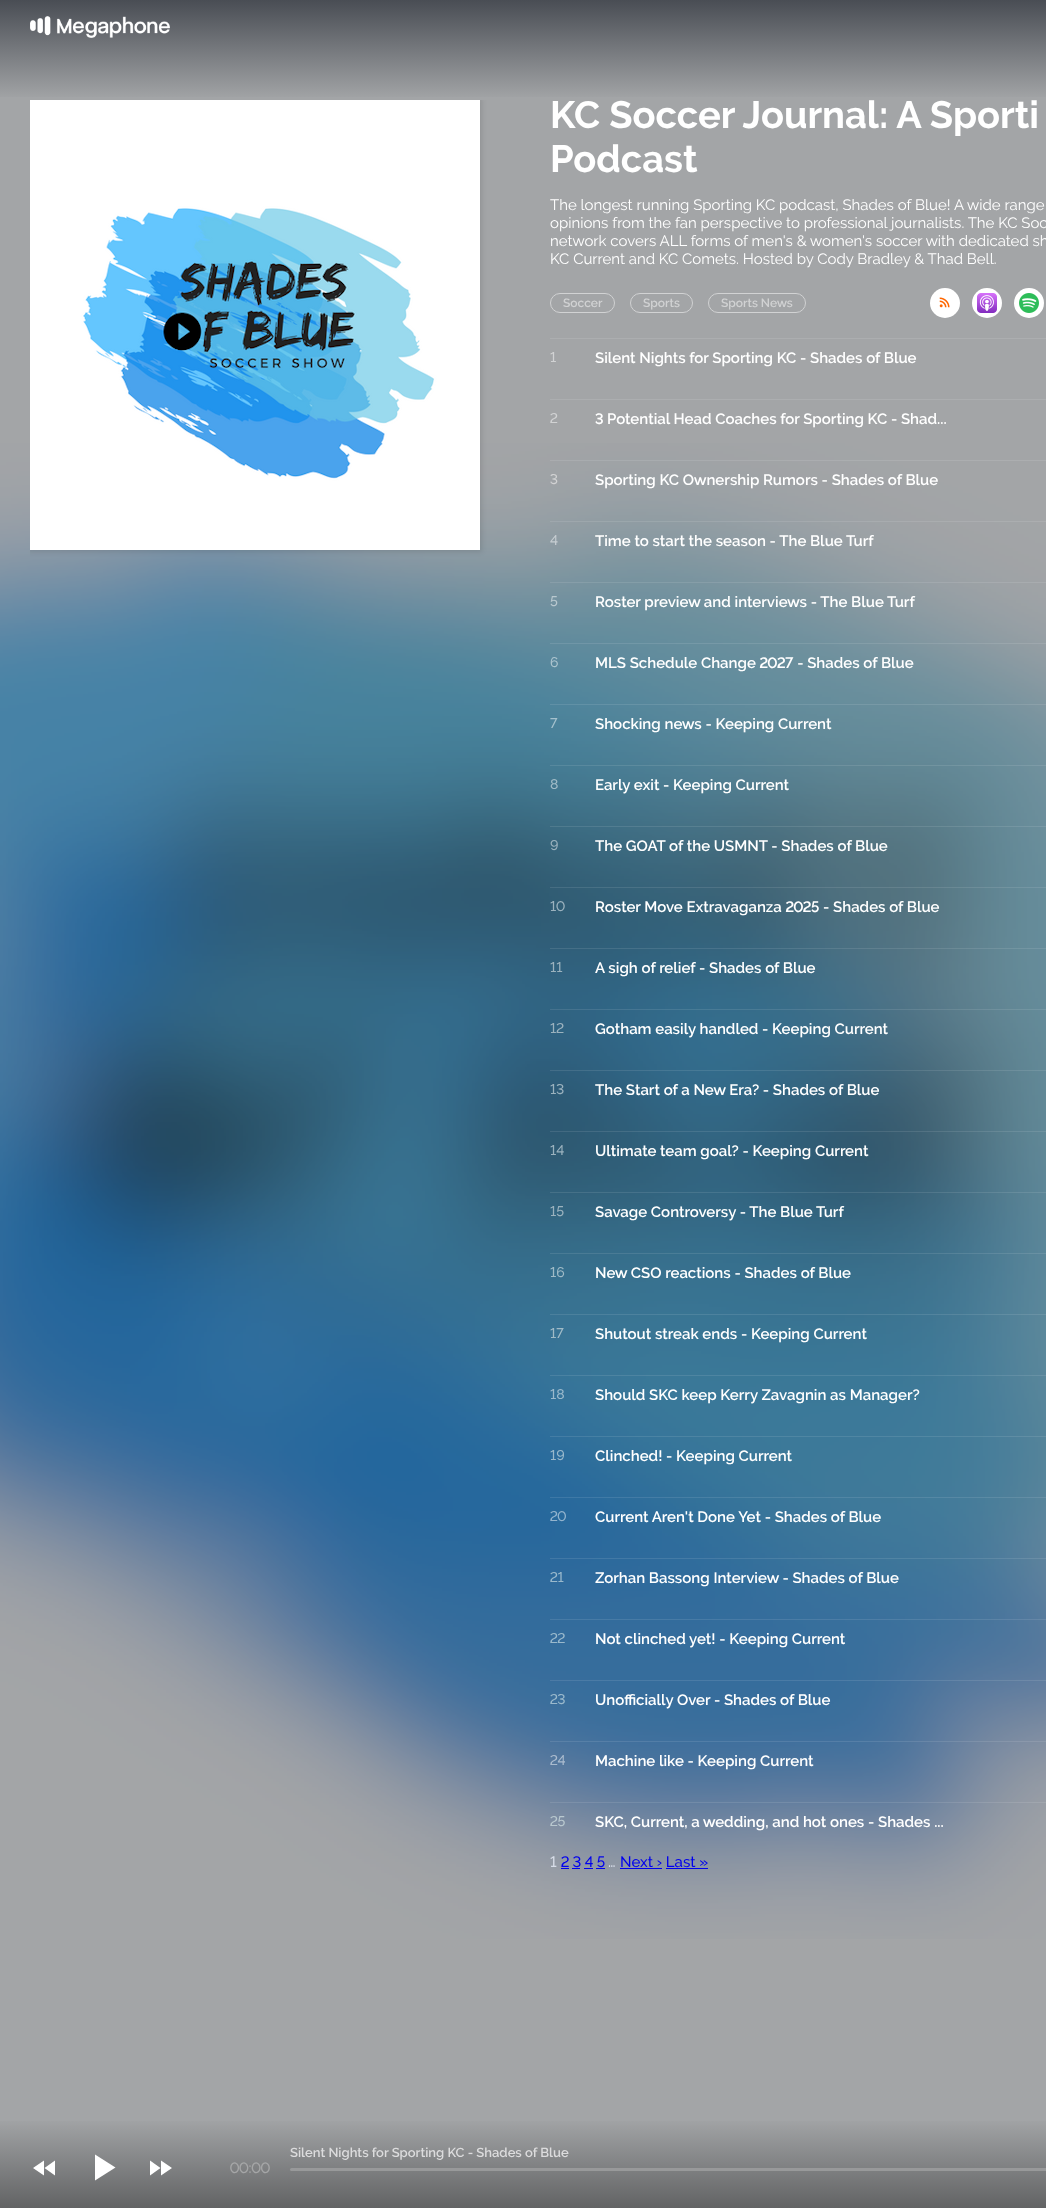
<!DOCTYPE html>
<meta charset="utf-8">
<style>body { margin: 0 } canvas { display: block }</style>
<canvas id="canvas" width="1046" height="2208"></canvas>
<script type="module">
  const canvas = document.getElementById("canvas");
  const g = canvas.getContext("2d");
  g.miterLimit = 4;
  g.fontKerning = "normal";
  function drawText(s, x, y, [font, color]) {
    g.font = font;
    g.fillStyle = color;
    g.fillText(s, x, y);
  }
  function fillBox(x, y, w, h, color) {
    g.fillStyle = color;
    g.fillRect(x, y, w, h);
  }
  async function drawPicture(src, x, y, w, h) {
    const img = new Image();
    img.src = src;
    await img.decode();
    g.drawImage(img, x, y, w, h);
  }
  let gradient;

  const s1 = ["bold 38px Raleway", "#FFFFFF"];
  const s2 = ["15px Raleway", "#FFFFFF"];
  const s3 = ["600 12px Raleway", "#D1D2D3"];
  const s4 = ["500 14px Raleway", "#D1D2D3"];
  const s5 = ["600 15px Raleway", "#FFFFFF"];
  const s6 = ["500 14px Raleway", "#C6CDD1"];
  const s7 = ["500 14px Raleway", "#B9C8CF"];
  const s8 = ["500 14px Raleway", "#ACC4CE"];
  const s9 = ["500 14px Raleway", "#A5C1CD"];
  const s10 = ["500 14px Raleway", "#A0BBC7"];
  const s11 = ["500 14px Raleway", "#9BB2BE"];
  const s12 = ["500 14px Raleway", "#9AB9CC"];
  const s13 = ["500 14px Raleway", "#93B4CE"];
  const s14 = ["500 14px Raleway", "#AABBCE"];
  const s15 = ["500 15px Raleway", "#D7DDE8"];
  const s16 = ["500 15px Raleway", "#0000EE"];
  const s17 = ["500 15px Raleway", "#A5A6A7"];
  const s18 = ["600 13px Raleway", "#DCDCDD"];

  fillBox(0, 0, 1046, 2208, "#A3A5A7");
  gradient = g.createLinearGradient(523, 0, 523, 100);
  gradient.addColorStop(0, "#494D54");
  gradient.addColorStop(1, "#A3A5A7");
  g.fillStyle = gradient;
  g.fillRect(0, 0, 1046, 97);
  await drawPicture("pic1.png", 30, 16, 140, 22);
  await drawPicture("pic6.png", 0, 443, 1046, 1496);
  g.save();
  g.beginPath();
  g.rect(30, 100, 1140, 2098);
  g.clip();
  g.fillStyle = "rgba(0, 0, 0, 0.1)";
  g.filter = "blur(2.5px)";
  g.beginPath();
  g.rect(28, 98, 454, 454);
  g.fill();
  g.filter = "none";
  g.restore();
  await drawPicture("pic2.png", 30, 100, 450, 450);
  drawText("KC Soccer Journal: A Sporti", 550, 128, s1);
  drawText("Podcast", 550, 172, s1);
  drawText("The longest running Sporting KC podcast, Shades of Blue! A wide range", 550, 210, s2);
  drawText("opinions from the fan perspective to professional journalists. The KC Soc", 550, 228, s2);
  drawText("network covers ALL forms of men's & women's soccer with dedicated sh", 550, 246, s2);
  drawText("KC Current and KC Comets. Hosted by Cody Bradley & Thad Bell.", 550, 264, s2);
  g.beginPath();
  g.roundRect(550.5, 293.5, 64, 19, 9.5);
  g.strokeStyle = "#D1D2D3";
  g.stroke();
  drawText("Soccer", 563, 307, s3);
  g.beginPath();
  g.roundRect(630.5, 293.5, 62, 19, 9.5);
  g.stroke();
  drawText("Sports", 643, 307, s3);
  g.beginPath();
  g.roundRect(708.5, 293.5, 97, 19, 9.5);
  g.stroke();
  drawText("Sports News", 721, 307, s3);
  g.fillStyle = "#FFFFFF";
  g.beginPath();
  g.arc(945, 303, 15, 0, Math.PI * 2);
  g.fill();
  await drawPicture("pic3.png", 939, 297, 11, 11);
  g.beginPath();
  g.arc(987, 303, 15, 0, Math.PI * 2);
  g.fill();
  await drawPicture("pic4.png", 977, 293, 20, 20);
  g.beginPath();
  g.arc(1029, 303, 15, 0, Math.PI * 2);
  g.fill();
  await drawPicture("pic5.png", 1019, 293, 20, 20);
  fillBox(550, 338, 496, 1, "#ACAEB0");
  drawText("1", 550, 362, s4);
  drawText("Silent Nights for Sporting KC - Shades of Blue", 595, 363, s5);
  fillBox(550, 399, 496, 1, "#ACAEB0");
  drawText("2", 550, 423, s4);
  drawText("3 Potential Head Coaches for Sporting KC - Shad...", 595, 424, s5);
  fillBox(550, 460, 496, 1, "rgba(255, 255, 255, 0.1)");
  drawText("3", 550, 484, s4);
  drawText("Sporting KC Ownership Rumors - Shades of Blue", 595, 485, s5);
  fillBox(550, 521, 496, 1, "rgba(255, 255, 255, 0.1)");
  drawText("4", 550, 545, s6);
  drawText("Time to start the season - The Blue Turf", 595, 546, s5);
  fillBox(550, 582, 496, 1, "rgba(255, 255, 255, 0.1)");
  drawText("5", 550, 606, s7);
  drawText("Roster preview and interviews - The Blue Turf", 595, 607, s5);
  fillBox(550, 643, 496, 1, "rgba(255, 255, 255, 0.1)");
  drawText("6", 550, 667, s8);
  drawText("MLS Schedule Change 2027 - Shades of Blue", 595, 668, s5);
  fillBox(550, 704, 496, 1, "rgba(255, 255, 255, 0.1)");
  drawText("7", 550, 728, s9);
  drawText("Shocking news - Keeping Current", 595, 729, s5);
  fillBox(550, 765, 496, 1, "rgba(255, 255, 255, 0.1)");
  drawText("8", 550, 789, s10);
  drawText("Early exit - Keeping Current", 595, 790, s5);
  fillBox(550, 826, 496, 1, "rgba(255, 255, 255, 0.1)");
  drawText("9", 550, 850, s11);
  drawText("The GOAT of the USMNT - Shades of Blue", 595, 851, s5);
  fillBox(550, 887, 496, 1, "rgba(255, 255, 255, 0.1)");
  drawText("10", 550, 911, s11);
  drawText("Roster Move Extravaganza 2025 - Shades of Blue", 595, 912, s5);
  fillBox(550, 948, 496, 1, "rgba(255, 255, 255, 0.1)");
  drawText("11", 550, 972, s11);
  drawText("A sigh of relief - Shades of Blue", 595, 973, s5);
  fillBox(550, 1009, 496, 1, "rgba(255, 255, 255, 0.1)");
  drawText("12", 550, 1033, s11);
  drawText("Gotham easily handled - Keeping Current", 595, 1034, s5);
  fillBox(550, 1070, 496, 1, "rgba(255, 255, 255, 0.1)");
  drawText("13", 550, 1094, s11);
  drawText("The Start of a New Era? - Shades of Blue", 595, 1095, s5);
  fillBox(550, 1131, 496, 1, "rgba(255, 255, 255, 0.1)");
  drawText("14", 550, 1155, s11);
  drawText("Ultimate team goal? - Keeping Current", 595, 1156, s5);
  fillBox(550, 1192, 496, 1, "rgba(255, 255, 255, 0.1)");
  drawText("15", 550, 1216, s11);
  drawText("Savage Controversy - The Blue Turf", 595, 1217, s5);
  fillBox(550, 1253, 496, 1, "rgba(255, 255, 255, 0.1)");
  drawText("16", 550, 1277, s10);
  drawText("New CSO reactions - Shades of Blue", 595, 1278, s5);
  fillBox(550, 1314, 496, 1, "rgba(255, 255, 255, 0.1)");
  drawText("17", 550, 1338, s10);
  drawText("Shutout streak ends - Keeping Current", 595, 1339, s5);
  fillBox(550, 1375, 496, 1, "rgba(255, 255, 255, 0.1)");
  drawText("18", 550, 1399, s12);
  drawText("Should SKC keep Kerry Zavagnin as Manager?", 595, 1400, s5);
  fillBox(550, 1436, 496, 1, "rgba(255, 255, 255, 0.1)");
  drawText("19", 550, 1460, s12);
  drawText("Clinched! - Keeping Current", 595, 1461, s5);
  fillBox(550, 1497, 496, 1, "rgba(255, 255, 255, 0.1)");
  drawText("20", 550, 1521, s13);
  drawText("Current Aren't Done Yet - Shades of Blue", 595, 1522, s5);
  fillBox(550, 1558, 496, 1, "rgba(255, 255, 255, 0.1)");
  drawText("21", 550, 1582, s12);
  drawText("Zorhan Bassong Interview - Shades of Blue", 595, 1583, s5);
  fillBox(550, 1619, 496, 1, "rgba(255, 255, 255, 0.1)");
  drawText("22", 550, 1643, s12);
  drawText("Not clinched yet! - Keeping Current", 595, 1644, s5);
  fillBox(550, 1680, 496, 1, "rgba(255, 255, 255, 0.1)");
  drawText("23", 550, 1704, s12);
  drawText("Unofficially Over - Shades of Blue", 595, 1705, s5);
  fillBox(550, 1741, 496, 1, "rgba(255, 255, 255, 0.1)");
  drawText("24", 550, 1765, s14);
  drawText("Machine like - Keeping Current", 595, 1766, s5);
  fillBox(550, 1802, 496, 1, "rgba(255, 255, 255, 0.1)");
  drawText("25", 550, 1826, s7);
  drawText("SKC, Current, a wedding, and hot ones - Shades ...", 595, 1827, s5);
  drawText("1", 550, 1867, s15);
  drawText("2 3 4 5", 561, 1867, s16);
  fillBox(561, 1868, 8, 1, "#0000EE");
  drawText("…", 608, 1867, s15);
  drawText("Next › Last »", 620, 1867, s16);
  fillBox(620, 1868, 42, 1, "#0000EE");
  fillBox(572, 1868, 8, 1, "#0000EE");
  fillBox(584, 1868, 9, 1, "#0000EE");
  fillBox(596, 1868, 9, 1, "#0000EE");
  fillBox(666, 1868, 42, 1, "#0000EE");
  gradient = g.createLinearGradient(523, 2118, 523, 2208);
  gradient.addColorStop(0, "#A3A5A7");
  gradient.addColorStop(1, "#626364");
  g.fillStyle = gradient;
  g.fillRect(0, 2121, 1046, 87);
  g.fillStyle = "#FFFFFF";
  g.beginPath();
  g.moveTo(44.5, 2168);
  g.lineTo(55, 2160.5);
  g.lineTo(55, 2175.5);
  g.closePath();
  g.moveTo(44, 2175.5);
  g.lineTo(33, 2168);
  g.lineTo(44, 2160.5);
  g.closePath();
  g.fill();
  g.beginPath();
  g.moveTo(95, 2154.5);
  g.lineTo(115.5, 2167.5);
  g.lineTo(95, 2180.5);
  g.closePath();
  g.fill();
  g.beginPath();
  g.moveTo(161, 2160.5);
  g.lineTo(172, 2168);
  g.lineTo(161, 2175.5);
  g.closePath();
  g.moveTo(150, 2175.5);
  g.lineTo(150, 2160.5);
  g.lineTo(160.5, 2168);
  g.closePath();
  g.fill();
  drawText("00:00", 230, 2173, s17);
  drawText("Silent Nights for Sporting KC - Shades of Blue", 290, 2157, s18);
  g.fillStyle = "#98999A";
  g.beginPath();
  g.roundRect(290, 2168, 756, 3, [1.5, 0, 0, 1.5]);
  g.fill();
</script>
